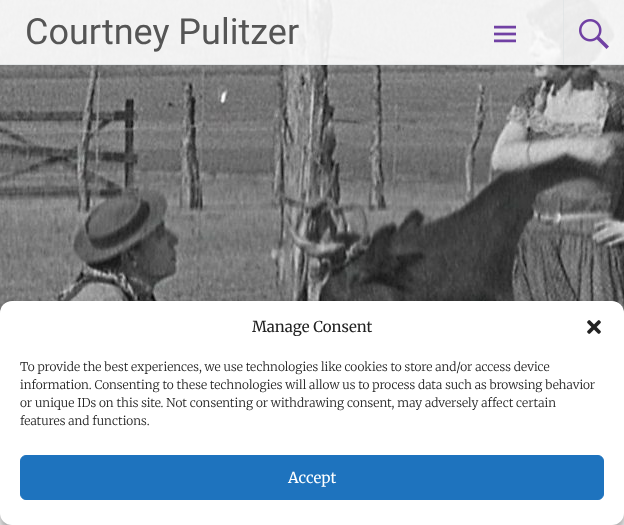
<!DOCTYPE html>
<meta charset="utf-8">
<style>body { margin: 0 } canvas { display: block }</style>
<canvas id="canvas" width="624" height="525"></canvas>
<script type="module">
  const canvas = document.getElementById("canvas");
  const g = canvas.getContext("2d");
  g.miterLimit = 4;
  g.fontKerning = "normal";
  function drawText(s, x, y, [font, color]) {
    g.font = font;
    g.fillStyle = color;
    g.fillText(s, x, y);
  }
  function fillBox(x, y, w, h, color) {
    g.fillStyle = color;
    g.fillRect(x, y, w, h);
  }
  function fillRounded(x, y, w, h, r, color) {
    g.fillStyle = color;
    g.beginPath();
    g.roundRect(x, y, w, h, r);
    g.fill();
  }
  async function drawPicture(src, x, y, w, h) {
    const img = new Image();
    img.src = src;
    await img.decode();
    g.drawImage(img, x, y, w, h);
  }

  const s1 = ["36px Roboto", "#555555"];
  const s2 = ["15px Merriweather", "#222222"];
  const s3 = ["300 12px Merriweather", "#222222"];
  const s4 = ["15px Merriweather", "#FFFFFF"];

  fillBox(0, 0, 624, 525, "#FFFFFF");
  await drawPicture("pic1.png", 0, 0, 624, 313);
  fillBox(0, 0, 624, 65, "rgba(255, 255, 255, 0.9)");
  fillBox(0, 64, 624, 1, "rgba(225, 228, 230, 0.9)");
  drawText("Courtney Pulitzer", 25, 44, s1);
  await drawPicture("pic2.png", 494, 25, 22, 18);
  fillBox(563, 0, 1, 64, "rgba(225, 228, 230, 0.9)");
  await drawPicture("pic3.png", 579, 19, 30, 30);
  g.fillStyle = "rgba(0, 0, 0, 0.23)";
  g.filter = "blur(3px)";
  g.beginPath();
  g.roundRect(0, 307, 624, 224, 12);
  g.fill();
  g.filter = "none";
  g.fillStyle = "rgba(0, 0, 0, 0.19)";
  g.filter = "blur(10px)";
  g.beginPath();
  g.roundRect(0, 311, 624, 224, 12);
  g.fill();
  g.filter = "none";
  fillRounded(0, 301, 624, 224, 12, "#FFFFFF");
  drawText("Manage Consent", 252, 332, s2);
  await drawPicture("pic4.png", 587, 320, 14, 14);
  drawText("To provide the best experiences, we use technologies like cookies to store and/or access device", 20, 371, s3);
  drawText("information. Consenting to these technologies will allow us to process data such as browsing behavior", 20, 389, s3);
  drawText("or unique IDs on this site. Not consenting or withdrawing consent, may adversely affect certain", 20, 407, s3);
  drawText("features and functions.", 20, 425, s3);
  g.fillStyle = "#1E73BE";
  g.beginPath();
  g.roundRect(20.5, 455.5, 583, 44, 5.5);
  g.fill();
  g.strokeStyle = "#1E73BE";
  g.stroke();
  drawText("Accept", 288, 483, s4);
</script>
